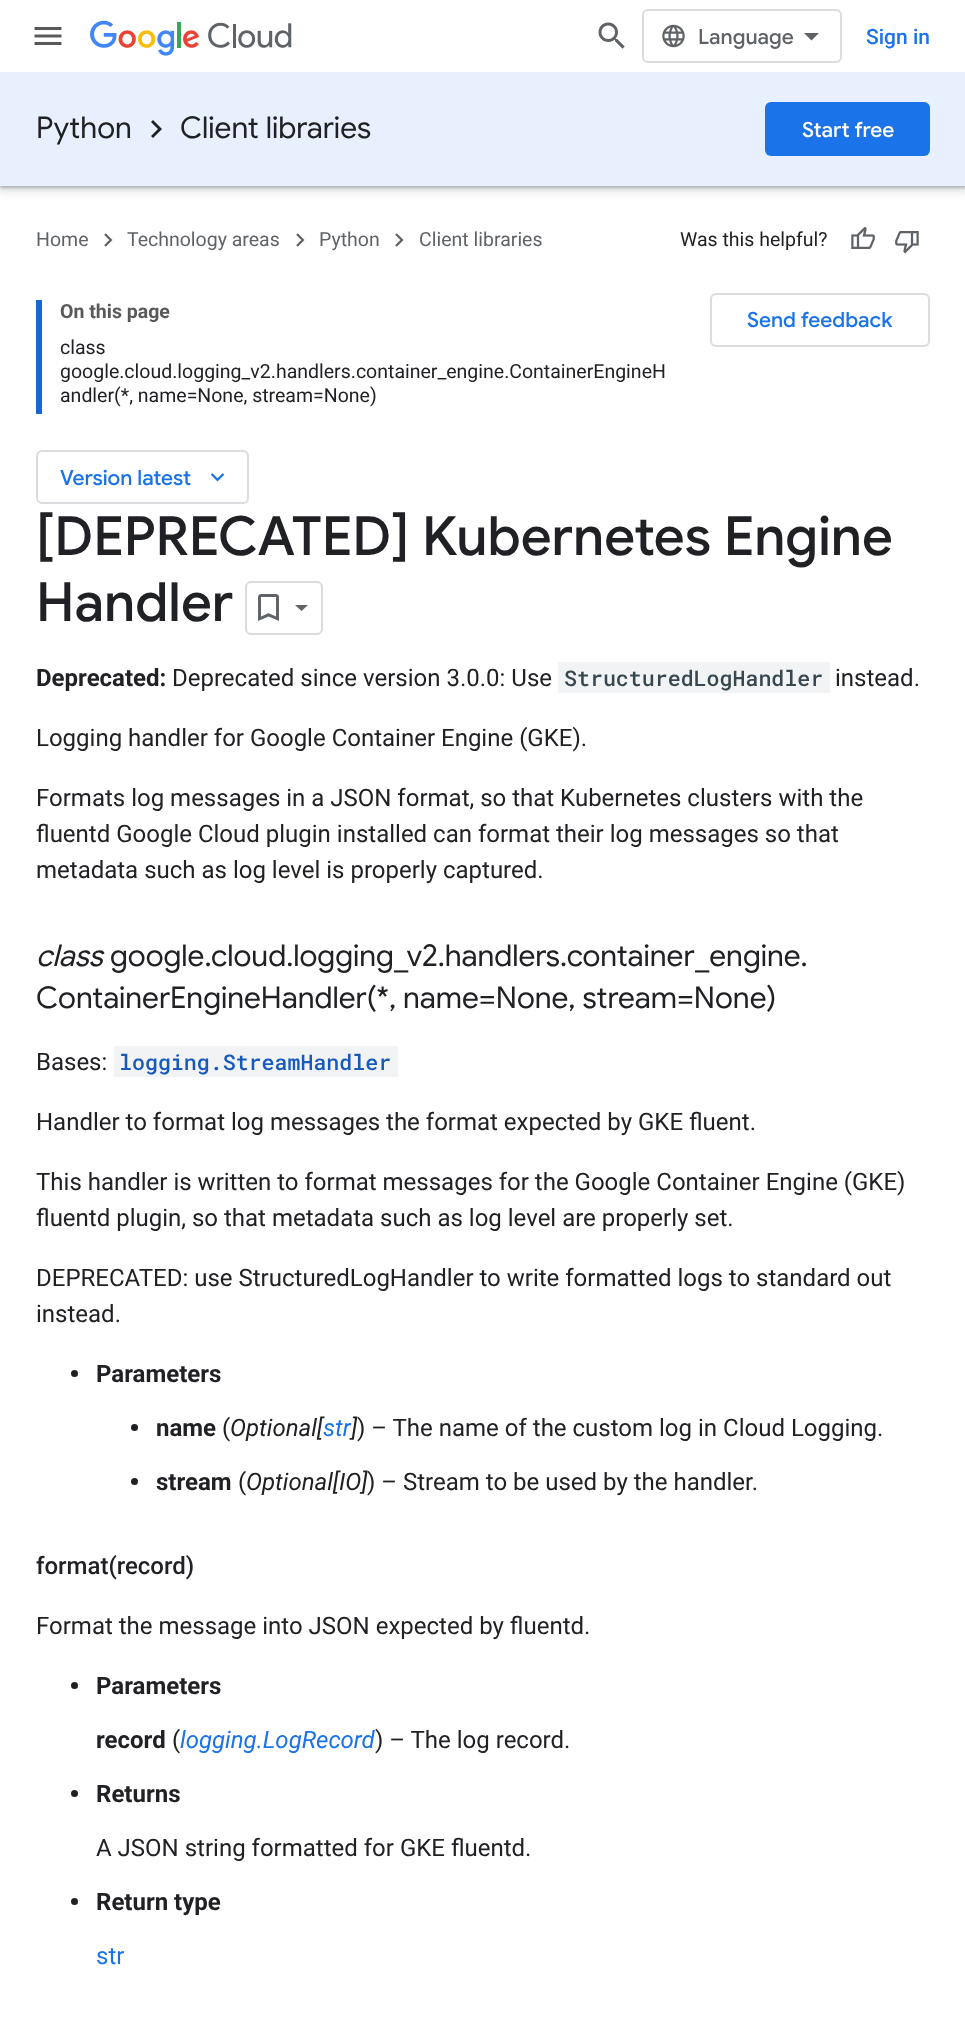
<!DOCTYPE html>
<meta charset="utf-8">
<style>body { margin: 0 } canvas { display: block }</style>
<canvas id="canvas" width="965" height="2042"></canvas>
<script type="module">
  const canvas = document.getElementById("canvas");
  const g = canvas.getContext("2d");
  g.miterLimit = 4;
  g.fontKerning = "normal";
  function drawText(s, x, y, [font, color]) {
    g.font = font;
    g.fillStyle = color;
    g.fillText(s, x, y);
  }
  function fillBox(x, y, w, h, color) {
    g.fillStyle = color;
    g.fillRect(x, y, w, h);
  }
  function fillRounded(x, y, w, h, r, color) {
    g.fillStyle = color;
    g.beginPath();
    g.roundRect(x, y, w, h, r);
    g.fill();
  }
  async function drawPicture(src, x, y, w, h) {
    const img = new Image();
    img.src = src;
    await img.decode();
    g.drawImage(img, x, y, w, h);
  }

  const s1 = ["500 21px Google Sans", "#5F6368"];
  const s2 = ["500 21px Roboto", "#1A73E8"];
  const s3 = ["30px Google Sans", "#202124"];
  const s4 = ["500 21px Google Sans", "#FFFFFF"];
  const s5 = ["19.5px Roboto", "#5F6368"];
  const s6 = ["19.5px Roboto", "#202124"];
  const s7 = ["bold 19.5px Roboto", "#595959"];
  const s8 = ["500 21px Google Sans", "#1A73E8"];
  const s9 = ["500 54px Google Sans", "#202124"];
  const s10 = ["bold 24px Roboto", "#202124"];
  const s11 = ["24px Roboto", "#202124"];
  const s12 = ["500 21.6px Roboto Mono", "#37474F"];
  const s13 = ["italic 30px Google Sans", "#202124"];
  const s14 = ["500 21.6px Roboto Mono", "#185ABC"];
  const s15 = ["italic 24px Roboto", "#202124"];
  const s16 = ["italic 24px Roboto", "#1A73E8"];
  const s17 = ["500 24px Roboto", "#202124"];
  const s18 = ["24px Roboto", "#1A73E8"];

  fillBox(0, 0, 965, 2042, "#FFFFFF");
  g.fillStyle = "rgba(60, 64, 67, 0.15)";
  g.filter = "blur(4.5px)";
  g.beginPath();
  g.rect(-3, 72, 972, 120);
  g.fill();
  g.filter = "none";
  g.fillStyle = "rgba(60, 64, 67, 0.3)";
  g.filter = "blur(1.5px)";
  g.beginPath();
  g.rect(0, 74, 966, 114);
  g.fill();
  g.filter = "none";
  fillBox(0, 66, 965, 6, "#FFFFFF");
  await drawPicture("pic1.png", 34, 27, 28, 18);
  await drawPicture("pic2.png", 90, 20, 202, 36);
  await drawPicture("pic3.png", 598, 22, 27, 27);
  g.beginPath();
  g.roundRect(643, 10, 198, 52, 5);
  g.strokeStyle = "#DADCE0";
  g.lineWidth = 2;
  g.stroke();
  await drawPicture("pic4.png", 662, 24, 23, 24);
  drawText("Language", 698, 44, s1);
  g.beginPath();
  g.moveTo(811.5, 40.5);
  g.lineTo(804, 33);
  g.lineTo(819, 33);
  g.closePath();
  g.fill();
  drawText("Sign in", 866, 44, s2);
  fillBox(0, 72, 965, 114, "#E8F0FE");
  drawText("Python", 36, 138, s3);
  g.beginPath();
  g.moveTo(153, 120);
  g.lineTo(162, 129);
  g.lineTo(153, 138);
  g.lineTo(151, 136);
  g.lineTo(158, 129);
  g.lineTo(151, 122);
  g.closePath();
  g.fill();
  drawText("Client libraries", 180, 138, s3);
  fillRounded(765, 102, 165, 54, 6, "#1A73E8");
  drawText("Start free", 802, 137, s4);
  drawText("Home", 36, 246, s5);
  await drawPicture("pic5.png", 104, 233, 9, 14);
  drawText("Technology areas", 127, 246, s5);
  await drawPicture("pic5.png", 296, 233, 9, 14);
  drawText("Python", 319, 246, s5);
  await drawPicture("pic5.png", 395, 233, 9, 14);
  drawText("Client libraries", 419, 246, s5);
  drawText("Was this helpful?", 680, 246, s6);
  await drawPicture("pic6.png", 851, 227, 24, 22);
  await drawPicture("pic7.png", 895, 231, 24, 23);
  fillBox(36, 300, 6, 114, "#1967D2");
  drawText("On this page", 60, 318, s7);
  drawText("class", 60, 354, s6);
  drawText("google.cloud.logging_v2.handlers.container_engine.ContainerEngineH", 60, 378, s6);
  drawText("andler(*, name=None, stream=None)", 60, 402, s6);
  g.beginPath();
  g.roundRect(711, 294, 218, 52, 5);
  g.stroke();
  drawText("Send feedback", 747, 327, s8);
  g.beginPath();
  g.roundRect(37, 451, 211, 52, 5);
  g.stroke();
  drawText("Version latest", 60, 485, s8);
  await drawPicture("pic8.png", 210, 473, 15, 9);
  drawText("[DEPRECATED] Kubernetes Engine", 36, 555, s9);
  drawText("Handler", 36, 621, s9);
  g.beginPath();
  g.roundRect(246, 582, 76, 52, 5);
  g.stroke();
  await drawPicture("pic9.png", 258, 594, 21, 27);
  g.fillStyle = "#5F6368";
  g.beginPath();
  g.moveTo(295, 605);
  g.lineTo(308, 605);
  g.lineTo(301.5, 611);
  g.closePath();
  g.fill();
  drawText("Deprecated:", 36, 686, s10);
  drawText("Deprecated since version 3.0.0: Use", 172, 686, s11);
  fillBox(558, 662, 272, 31, "#F1F3F4");
  drawText("StructuredLogHandler", 564, 686, s12);
  drawText("instead.", 835, 686, s11);
  drawText("Logging handler for Google Container Engine (GKE).", 36, 746, s11);
  drawText("Formats log messages in a JSON format, so that Kubernetes clusters with the", 36, 806, s11);
  drawText("fluentd Google Cloud plugin installed can format their log messages so that", 36, 842, s11);
  drawText("metadata such as log level is properly captured.", 36, 878, s11);
  drawText("class", 36, 966, s13);
  drawText("google.cloud.logging_v2.handlers.container", 110, 966, s3);
  drawText("_engine.", 695, 966, s3);
  drawText("ContainerEngineHandler(*, name=None, stream=None)", 36, 1008, s3);
  drawText("Bases:", 36, 1070, s11);
  fillBox(114, 1046, 284, 31, "#F1F3F4");
  drawText("logging.StreamHandler", 119, 1070, s14);
  drawText("Handler to format log messages the format expected by GKE fluent.", 36, 1130, s11);
  drawText("This handler is written to format messages for the Google Container Engine (GKE)", 36, 1190, s11);
  drawText("fluentd plugin, so that metadata such as log level are properly set.", 36, 1226, s11);
  drawText("DEPRECATED: use StructuredLogHandler to write formatted logs to standard out", 36, 1286, s11);
  drawText("instead.", 36, 1322, s11);
  g.beginPath();
  g.arc(74.5, 1373.5, 3.5, 0, Math.PI * 2);
  g.fill();
  drawText("Parameters", 96, 1382, s10);
  g.beginPath();
  g.arc(134.5, 1427.5, 3.5, 0, Math.PI * 2);
  g.fill();
  drawText("name", 156, 1436, s10);
  drawText("(", 222, 1436, s11);
  drawText("Optional[", 230, 1436, s15);
  drawText("str", 323, 1436, s16);
  drawText("]", 351, 1436, s15);
  drawText(") – The name of the custom log in Cloud Logging.", 357, 1436, s11);
  g.beginPath();
  g.arc(134.5, 1481.5, 3.5, 0, Math.PI * 2);
  g.fill();
  drawText("stream", 156, 1490, s10);
  drawText("(", 238, 1490, s11);
  drawText("Optional[IO]", 246, 1490, s15);
  drawText(") – Stream to be used by the handler.", 367, 1490, s11);
  drawText("format(record)", 36, 1574, s17);
  drawText("Format the message into JSON expected by fluentd.", 36, 1634, s11);
  g.beginPath();
  g.arc(74.5, 1685.5, 3.5, 0, Math.PI * 2);
  g.fill();
  drawText("Parameters", 96, 1694, s10);
  drawText("record", 96, 1748, s10);
  drawText("(", 172, 1748, s11);
  drawText("logging.LogRecord", 180, 1748, s16);
  drawText(") – The log record.", 375, 1748, s11);
  g.beginPath();
  g.arc(74.5, 1793.5, 3.5, 0, Math.PI * 2);
  g.fill();
  drawText("Returns", 96, 1802, s10);
  drawText("A JSON string formatted for GKE fluentd.", 96, 1856, s11);
  g.beginPath();
  g.arc(74.5, 1901.5, 3.5, 0, Math.PI * 2);
  g.fill();
  drawText("Return type", 96, 1910, s10);
  drawText("str", 96, 1964, s18);
</script>
